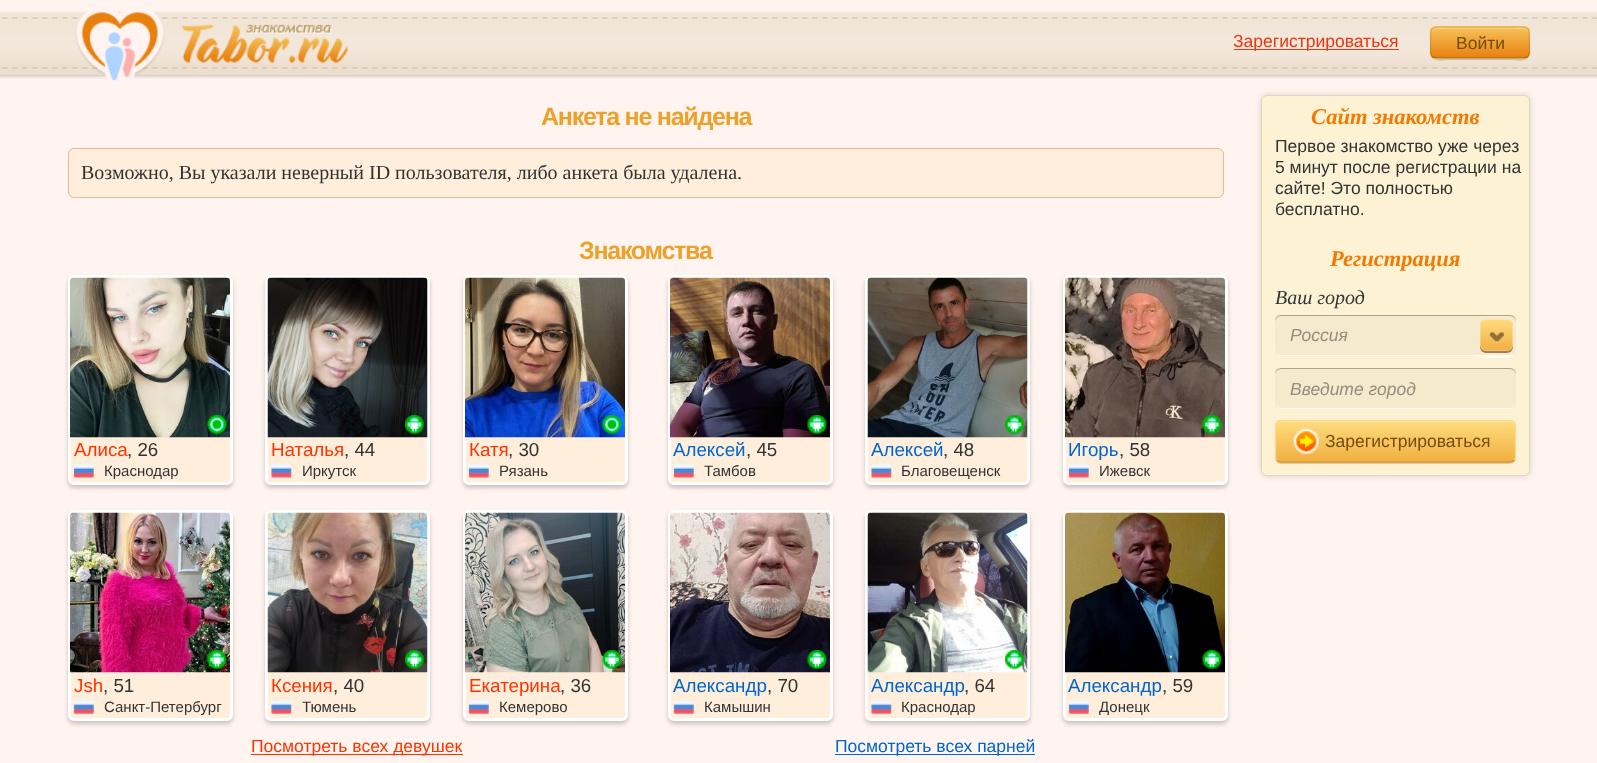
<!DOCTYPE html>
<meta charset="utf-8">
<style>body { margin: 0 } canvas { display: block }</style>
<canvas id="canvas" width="1597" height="763"></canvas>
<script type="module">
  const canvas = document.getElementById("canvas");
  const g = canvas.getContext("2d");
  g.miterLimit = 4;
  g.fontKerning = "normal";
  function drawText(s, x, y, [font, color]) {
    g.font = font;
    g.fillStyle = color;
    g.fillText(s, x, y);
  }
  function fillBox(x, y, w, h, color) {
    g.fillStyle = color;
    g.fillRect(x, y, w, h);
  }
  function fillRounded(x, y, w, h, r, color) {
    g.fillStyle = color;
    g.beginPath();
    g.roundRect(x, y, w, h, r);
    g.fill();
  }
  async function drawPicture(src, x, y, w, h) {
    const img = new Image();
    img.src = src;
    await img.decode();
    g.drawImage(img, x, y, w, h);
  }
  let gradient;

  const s1 = ["17.5px Liberation Sans", "#E8380F"];
  const s2 = ["17.5px Liberation Sans", "#734D0C"];
  const s3 = ["bold 25px Liberation Sans", "#ECA22A"];
  const s4 = ["20px Liberation Serif", "#333333"];
  const s5 = ["18.75px Liberation Sans", "#FF3300"];
  const s6 = ["18.75px Liberation Sans", "#333333"];
  const s7 = ["15px Liberation Sans", "#333333"];
  const s8 = ["17.5px Liberation Sans", "#FF3300"];
  const s9 = ["18.75px Liberation Sans", "#0066CC"];
  const s10 = ["17.5px Liberation Sans", "#0066CC"];
  const s11 = ["italic bold 22.5px Liberation Serif", "#F47900"];
  const s12 = ["17.5px Liberation Sans", "#333333"];
  const s13 = ["italic 20px Liberation Serif", "#333333"];
  const s14 = ["italic 17.5px Liberation Sans", "#948D7E"];

  fillBox(0, 0, 1597, 763, "#FFF4F0");
  await drawPicture("pic1.png", 0, 11, 1597, 68);
  await drawPicture("pic2.png", 75, 11, 273, 70);
  fillBox(1234, 49, 165, 1, "#E8380F");
  drawText("Зарегистрироваться", 1233, 47, s1);
  g.fillStyle = "#CCC1B5";
  g.beginPath();
  g.moveTo(1430, 52);
  g.bezierCurveTo(1430, 64, 1443, 60, 1451, 60);
  g.lineTo(1509, 60);
  g.bezierCurveTo(1517, 60, 1530, 64, 1530, 52);
  g.bezierCurveTo(1530, 56, 1527, 59, 1524, 59);
  g.lineTo(1436, 59);
  g.bezierCurveTo(1433, 59, 1430, 56, 1430, 52);
  g.closePath();
  g.fill();
  fillRounded(1430, 26, 100, 33, 6, "#F6C25B");
  g.save();
  g.beginPath();
  g.roundRect(1430, 26, 100, 33, 6);
  g.clip();
  gradient = g.createLinearGradient(1480, 27, 1480, 58);
  gradient.addColorStop(0, "#F6C25B");
  gradient.addColorStop(1, "#E8800F");
  g.fillStyle = gradient;
  g.fillRect(1430, 28, 100, 30);
  g.restore();
  g.fillStyle = "rgba(255, 255, 255, 0.25)";
  g.beginPath();
  g.moveTo(1436, 29);
  g.lineTo(1524, 29);
  g.bezierCurveTo(1527, 29, 1529, 31, 1529, 34);
  g.bezierCurveTo(1529, 24, 1515, 28, 1509, 28);
  g.lineTo(1451, 28);
  g.bezierCurveTo(1445, 28, 1431, 24, 1431, 34);
  g.bezierCurveTo(1431, 31, 1433, 29, 1436, 29);
  g.closePath();
  g.fill();
  g.beginPath();
  g.moveTo(1527.5, 56.5);
  g.lineTo(1524.5, 58);
  g.lineTo(1435.5, 58);
  g.lineTo(1432.5, 56.5);
  g.strokeStyle = "rgba(0, 0, 0, 0.25)";
  g.lineWidth = 1.2;
  g.stroke();
  g.beginPath();
  g.moveTo(1432.5, 56.5);
  g.bezierCurveTo(1429.5, 54, 1430.5, 49, 1430.5, 46);
  g.bezierCurveTo(1430.5, 24.5, 1428.5, 27, 1451, 27);
  g.lineTo(1509, 27);
  g.bezierCurveTo(1531.5, 27, 1529.5, 24.5, 1529.5, 46);
  g.bezierCurveTo(1529.5, 49, 1530.5, 54, 1527.5, 56.5);
  g.strokeStyle = "rgba(0, 0, 0, 0.1)";
  g.stroke();
  drawText("Войти", 1456, 49, s2);
  g.letterSpacing = "-1.25px";
  drawText("Анкета не найдена", 541, 125, s3);
  g.fillStyle = "#FFEEDB";
  g.beginPath();
  g.roundRect(68.5, 148.5, 1155, 49, 5.5);
  g.fill();
  g.strokeStyle = "#E8B992";
  g.lineWidth = 1;
  g.stroke();
  g.letterSpacing = "0px";
  drawText("Возможно, Вы указали неверный ID пользователя, либо анкета была удалена.", 81, 179, s4);
  g.letterSpacing = "-1.25px";
  drawText("Знакомства", 579, 259, s3);
  g.fillStyle = "rgba(0, 0, 0, 0.2)";
  g.filter = "blur(2px)";
  g.beginPath();
  g.roundRect(68, 278, 165, 210, 6);
  g.fill();
  g.filter = "none";
  g.fillStyle = "#FFEEDB";
  g.beginPath();
  g.roundRect(69.5, 276.5, 162, 207, 4.5);
  g.fill();
  g.strokeStyle = "#FFFFFF";
  g.lineWidth = 3;
  g.stroke();
  await drawPicture("pic3.png", 70, 277, 160, 161);
  await drawPicture("pic4.png", 207, 415, 20, 19);
  g.letterSpacing = "0px";
  drawText("Алиса", 74, 456, s5);
  drawText(", 26", 127, 456, s6);
  await drawPicture("pic5.png", 73, 463, 21, 15);
  drawText("Краснодар", 104, 476, s7);
  g.fillStyle = "rgba(0, 0, 0, 0.2)";
  g.filter = "blur(2px)";
  g.beginPath();
  g.roundRect(265, 278, 165, 210, 6);
  g.fill();
  g.filter = "none";
  g.fillStyle = "#FFEEDB";
  g.beginPath();
  g.roundRect(266.5, 276.5, 162, 207, 4.5);
  g.fill();
  g.stroke();
  await drawPicture("pic6.png", 267, 277, 161, 161);
  await drawPicture("pic7.png", 405, 415, 19, 19);
  drawText("Наталья", 271, 456, s5);
  drawText(", 44", 344, 456, s6);
  await drawPicture("pic8.png", 271, 463, 21, 15);
  drawText("Иркутск", 302, 476, s7);
  g.fillStyle = "rgba(0, 0, 0, 0.2)";
  g.filter = "blur(2px)";
  g.beginPath();
  g.roundRect(463, 278, 165, 210, 6);
  g.fill();
  g.filter = "none";
  g.fillStyle = "#FFEEDB";
  g.beginPath();
  g.roundRect(464.5, 276.5, 162, 207, 4.5);
  g.fill();
  g.stroke();
  await drawPicture("pic9.png", 465, 277, 160, 161);
  await drawPicture("pic10.png", 602, 415, 20, 19);
  drawText("Катя", 469, 456, s5);
  drawText(", 30", 508, 456, s6);
  await drawPicture("pic5.png", 468, 463, 21, 15);
  drawText("Рязань", 499, 476, s7);
  g.fillStyle = "rgba(0, 0, 0, 0.2)";
  g.filter = "blur(2px)";
  g.beginPath();
  g.roundRect(68, 513, 165, 211, 6);
  g.fill();
  g.filter = "none";
  g.fillStyle = "#FFEEDB";
  g.beginPath();
  g.roundRect(69.5, 511.5, 162, 208, 4.5);
  g.fill();
  g.stroke();
  await drawPicture("pic11.png", 70, 512, 160, 161);
  await drawPicture("pic12.png", 207, 650, 20, 19);
  drawText("Jsh", 74, 692, s5);
  drawText(", 51", 103, 692, s6);
  await drawPicture("pic13.png", 73, 700, 21, 14);
  drawText("Санкт-Петербург", 104, 712, s7);
  g.fillStyle = "rgba(0, 0, 0, 0.2)";
  g.filter = "blur(2px)";
  g.beginPath();
  g.roundRect(265, 513, 165, 211, 6);
  g.fill();
  g.filter = "none";
  g.fillStyle = "#FFEEDB";
  g.beginPath();
  g.roundRect(266.5, 511.5, 162, 208, 4.5);
  g.fill();
  g.stroke();
  await drawPicture("pic14.png", 267, 512, 161, 161);
  await drawPicture("pic15.png", 405, 650, 19, 19);
  drawText("Ксения", 271, 692, s5);
  drawText(", 40", 333, 692, s6);
  await drawPicture("pic16.png", 271, 700, 21, 14);
  drawText("Тюмень", 302, 712, s7);
  g.fillStyle = "rgba(0, 0, 0, 0.2)";
  g.filter = "blur(2px)";
  g.beginPath();
  g.roundRect(463, 513, 165, 211, 6);
  g.fill();
  g.filter = "none";
  g.fillStyle = "#FFEEDB";
  g.beginPath();
  g.roundRect(464.5, 511.5, 162, 208, 4.5);
  g.fill();
  g.stroke();
  await drawPicture("pic17.png", 465, 512, 160, 161);
  await drawPicture("pic18.png", 602, 650, 20, 19);
  drawText("Екатерина", 469, 692, s5);
  drawText(", 36", 560, 692, s6);
  await drawPicture("pic13.png", 468, 700, 21, 14);
  drawText("Кемерово", 499, 712, s7);
  fillBox(251, 754, 212, 1, "#FF3300");
  drawText("Посмотреть всех девушек", 251, 752, s8);
  g.fillStyle = "rgba(0, 0, 0, 0.2)";
  g.filter = "blur(2px)";
  g.beginPath();
  g.roundRect(668, 278, 165, 210, 6);
  g.fill();
  g.filter = "none";
  g.fillStyle = "#FFEEDB";
  g.beginPath();
  g.roundRect(669.5, 276.5, 162, 207, 4.5);
  g.fill();
  g.stroke();
  await drawPicture("pic19.png", 670, 277, 160, 161);
  await drawPicture("pic20.png", 807, 415, 20, 19);
  drawText("Алексей", 673, 456, s9);
  drawText(", 45", 746, 456, s6);
  await drawPicture("pic21.png", 673, 463, 21, 15);
  drawText("Тамбов", 704, 476, s7);
  g.fillStyle = "rgba(0, 0, 0, 0.2)";
  g.filter = "blur(2px)";
  g.beginPath();
  g.roundRect(865, 278, 165, 210, 6);
  g.fill();
  g.filter = "none";
  g.fillStyle = "#FFEEDB";
  g.beginPath();
  g.roundRect(866.5, 276.5, 162, 207, 4.5);
  g.fill();
  g.stroke();
  await drawPicture("pic22.png", 867, 277, 161, 161);
  await drawPicture("pic23.png", 1005, 415, 19, 19);
  drawText("Алексей", 871, 456, s9);
  drawText(", 48", 943, 456, s6);
  await drawPicture("pic8.png", 871, 463, 21, 15);
  drawText("Благовещенск", 901, 476, s7);
  g.fillStyle = "rgba(0, 0, 0, 0.2)";
  g.filter = "blur(2px)";
  g.beginPath();
  g.roundRect(1063, 278, 165, 210, 6);
  g.fill();
  g.filter = "none";
  g.fillStyle = "#FFEEDB";
  g.beginPath();
  g.roundRect(1064.5, 276.5, 162, 207, 4.5);
  g.fill();
  g.stroke();
  await drawPicture("pic24.png", 1065, 277, 160, 161);
  await drawPicture("pic25.png", 1202, 415, 20, 19);
  drawText("Игорь", 1068, 456, s9);
  drawText(", 58", 1119, 456, s6);
  await drawPicture("pic21.png", 1068, 463, 21, 15);
  drawText("Ижевск", 1099, 476, s7);
  g.fillStyle = "rgba(0, 0, 0, 0.2)";
  g.filter = "blur(2px)";
  g.beginPath();
  g.roundRect(668, 513, 165, 211, 6);
  g.fill();
  g.filter = "none";
  g.fillStyle = "#FFEEDB";
  g.beginPath();
  g.roundRect(669.5, 511.5, 162, 208, 4.5);
  g.fill();
  g.stroke();
  await drawPicture("pic26.png", 670, 512, 160, 161);
  await drawPicture("pic27.png", 807, 650, 20, 19);
  drawText("Александр", 673, 692, s9);
  drawText(", 70", 767, 692, s6);
  await drawPicture("pic28.png", 673, 700, 21, 14);
  drawText("Камышин", 704, 712, s7);
  g.fillStyle = "rgba(0, 0, 0, 0.2)";
  g.filter = "blur(2px)";
  g.beginPath();
  g.roundRect(865, 513, 165, 211, 6);
  g.fill();
  g.filter = "none";
  g.fillStyle = "#FFEEDB";
  g.beginPath();
  g.roundRect(866.5, 511.5, 162, 208, 4.5);
  g.fill();
  g.stroke();
  await drawPicture("pic29.png", 867, 512, 161, 161);
  await drawPicture("pic30.png", 1005, 650, 19, 19);
  drawText("Александр", 871, 692, s9);
  drawText(", 64", 964, 692, s6);
  await drawPicture("pic16.png", 871, 700, 21, 14);
  drawText("Краснодар", 901, 712, s7);
  g.fillStyle = "rgba(0, 0, 0, 0.2)";
  g.filter = "blur(2px)";
  g.beginPath();
  g.roundRect(1063, 513, 165, 211, 6);
  g.fill();
  g.filter = "none";
  g.fillStyle = "#FFEEDB";
  g.beginPath();
  g.roundRect(1064.5, 511.5, 162, 208, 4.5);
  g.fill();
  g.stroke();
  await drawPicture("pic31.png", 1065, 512, 160, 161);
  await drawPicture("pic32.png", 1202, 650, 20, 19);
  drawText("Александр", 1068, 692, s9);
  drawText(", 59", 1162, 692, s6);
  await drawPicture("pic28.png", 1068, 700, 21, 14);
  drawText("Донецк", 1099, 712, s7);
  fillBox(835, 754, 200, 1, "#0066CC");
  drawText("Посмотреть всех парней", 835, 752, s10);
  g.fillStyle = "rgba(0, 0, 0, 0.15)";
  g.filter = "blur(3px)";
  g.beginPath();
  g.roundRect(1261, 95, 269, 381, 6);
  g.fill();
  g.filter = "none";
  fillRounded(1261, 95, 269, 381, 6, "#FDF2D4");
  g.fillStyle = "#FEF9EA";
  g.beginPath();
  g.moveTo(1264, 472);
  g.bezierCurveTo(1264, 474, 1266, 475, 1268, 475);
  g.lineTo(1524, 475);
  g.bezierCurveTo(1527, 475, 1529, 473, 1529, 470);
  g.lineTo(1529, 469);
  g.bezierCurveTo(1529, 472, 1527, 474, 1524, 474);
  g.lineTo(1268, 474);
  g.bezierCurveTo(1266, 474, 1265, 473, 1264, 472);
  g.closePath();
  g.fill();
  g.beginPath();
  g.roundRect(1261.5, 95.5, 268, 380, 5.5);
  g.strokeStyle = "#E4D5BE";
  g.lineWidth = 1;
  g.stroke();
  drawText("Сайт знакомств", 1311, 124, s11);
  drawText("Первое знакомство уже через", 1275, 152, s12);
  drawText("5 минут после регистрации на", 1275, 173, s12);
  drawText("сайте! Это полностью", 1275, 194, s12);
  drawText("бесплатно.", 1275, 215, s12);
  drawText("Регистрация", 1330, 266, s11);
  drawText("Ваш город", 1275, 304, s13);
  g.fillStyle = "#FFFCF6";
  g.beginPath();
  g.moveTo(1275, 349);
  g.bezierCurveTo(1275, 352, 1276, 355, 1280, 356);
  g.lineTo(1472, 356);
  g.bezierCurveTo(1478, 356, 1515, 363, 1516, 351);
  g.bezierCurveTo(1515, 353, 1513, 355, 1510, 355);
  g.lineTo(1281, 355);
  g.bezierCurveTo(1278, 355, 1275, 352, 1275, 349);
  g.closePath();
  g.fill();
  fillBox(1275, 315, 241, 40, "rgba(0, 0, 0, 0.03)");
  g.fillStyle = "#ACA490";
  g.beginPath();
  g.moveTo(1281, 316);
  g.lineTo(1510, 316);
  g.bezierCurveTo(1513, 316, 1516, 319, 1516, 322);
  g.lineTo(1516, 321);
  g.bezierCurveTo(1516, 318, 1513, 315, 1510, 315);
  g.lineTo(1281, 315);
  g.bezierCurveTo(1278, 315, 1275, 318, 1275, 321);
  g.lineTo(1275, 322);
  g.bezierCurveTo(1275, 319, 1278, 316, 1281, 316);
  g.closePath();
  g.fill();
  drawText("Россия", 1290, 341, s14);
  g.fillStyle = "rgba(125, 97, 51, 0.75)";
  g.filter = "blur(0.5px)";
  g.beginPath();
  g.roundRect(1480, 320, 33, 33, 6);
  g.fill();
  g.filter = "none";
  gradient = g.createLinearGradient(1496, 319, 1496, 351);
  gradient.addColorStop(0, "#FFDC7E");
  gradient.addColorStop(1, "#F2AF42");
  g.fillStyle = gradient;
  g.beginPath();
  g.roundRect(1480, 319, 33, 32, 6);
  g.fill();
  g.beginPath();
  g.roundRect(1480.5, 319.5, 32, 31, 5.5);
  g.strokeStyle = "rgba(255, 255, 255, 0.25)";
  g.stroke();
  await drawPicture("pic33.png", 1489, 332, 15, 11);
  g.fillStyle = "#FFFCF6";
  g.beginPath();
  g.moveTo(1275, 401);
  g.lineTo(1275, 403);
  g.bezierCurveTo(1275, 406, 1278, 409, 1281, 409);
  g.lineTo(1510, 409);
  g.bezierCurveTo(1513, 409, 1516, 406, 1516, 403);
  g.bezierCurveTo(1515, 406, 1513, 408, 1510, 408);
  g.lineTo(1281, 408);
  g.bezierCurveTo(1278, 408, 1275, 405, 1275, 401);
  g.closePath();
  g.fill();
  fillBox(1275, 368, 241, 40, "rgba(0, 0, 0, 0.03)");
  g.fillStyle = "#ACA490";
  g.beginPath();
  g.moveTo(1281, 369);
  g.lineTo(1510, 369);
  g.bezierCurveTo(1513, 369, 1516, 372, 1516, 375);
  g.lineTo(1516, 374);
  g.bezierCurveTo(1516, 371, 1513, 368, 1510, 368);
  g.lineTo(1281, 368);
  g.bezierCurveTo(1278, 368, 1275, 371, 1275, 374);
  g.lineTo(1275, 375);
  g.bezierCurveTo(1275, 372, 1278, 369, 1281, 369);
  g.closePath();
  g.fill();
  drawText("Введите город", 1290, 395, s14);
  g.fillStyle = "#D7CEB4";
  g.beginPath();
  g.moveTo(1275, 456);
  g.lineTo(1275, 458);
  g.bezierCurveTo(1275, 461, 1278, 464, 1281, 464);
  g.lineTo(1510, 464);
  g.bezierCurveTo(1513, 464, 1516, 461, 1516, 458);
  g.bezierCurveTo(1515, 461, 1513, 462, 1510, 462);
  g.lineTo(1281, 462);
  g.bezierCurveTo(1278, 462, 1275, 460, 1275, 456);
  g.closePath();
  g.fill();
  fillRounded(1275, 420, 241, 43, 6, "#F2AF42");
  g.save();
  g.beginPath();
  g.roundRect(1275, 420, 241, 43, 6);
  g.clip();
  gradient = g.createLinearGradient(1396, 421, 1396, 461);
  gradient.addColorStop(0, "#FFDC7E");
  gradient.addColorStop(1, "#F2AF42");
  g.fillStyle = gradient;
  g.fillRect(1275, 421, 241, 40);
  g.restore();
  g.fillStyle = "rgba(255, 255, 255, 0.25)";
  g.beginPath();
  g.moveTo(1281, 422);
  g.lineTo(1510, 422);
  g.bezierCurveTo(1513, 422, 1515, 425, 1515, 428);
  g.bezierCurveTo(1515, 425, 1515, 422, 1511, 421);
  g.lineTo(1280, 421);
  g.bezierCurveTo(1276, 422, 1276, 425, 1276, 428);
  g.bezierCurveTo(1276, 425, 1278, 422, 1281, 422);
  g.closePath();
  g.fill();
  g.beginPath();
  g.moveTo(1514, 460);
  g.bezierCurveTo(1513, 461.5, 1511.5, 462, 1510, 462);
  g.lineTo(1281, 462);
  g.bezierCurveTo(1280, 462, 1278.5, 461.5, 1277.5, 460);
  g.strokeStyle = "rgba(0, 0, 0, 0.15)";
  g.lineWidth = 1.2;
  g.stroke();
  g.beginPath();
  g.moveTo(1277.5, 460);
  g.bezierCurveTo(1276, 459, 1275.5, 457.5, 1275.5, 456);
  g.lineTo(1275.5, 426);
  g.bezierCurveTo(1275.5, 425, 1276, 423.5, 1277.5, 422.5);
  g.bezierCurveTo(1278.5, 421, 1280, 420.5, 1281, 420.5);
  g.lineTo(1510, 420.5);
  g.bezierCurveTo(1511.5, 420.5, 1513, 421, 1514, 422.5);
  g.bezierCurveTo(1515, 423.5, 1515.5, 425, 1515.5, 426);
  g.lineTo(1515.5, 456);
  g.bezierCurveTo(1515.5, 457.5, 1515, 459, 1514, 460);
  g.strokeStyle = "#FBD98F";
  g.stroke();
  await drawPicture("pic34.png", 1293, 428, 26, 26);
  drawText("Зарегистрироваться", 1325, 447, s2);
</script>
